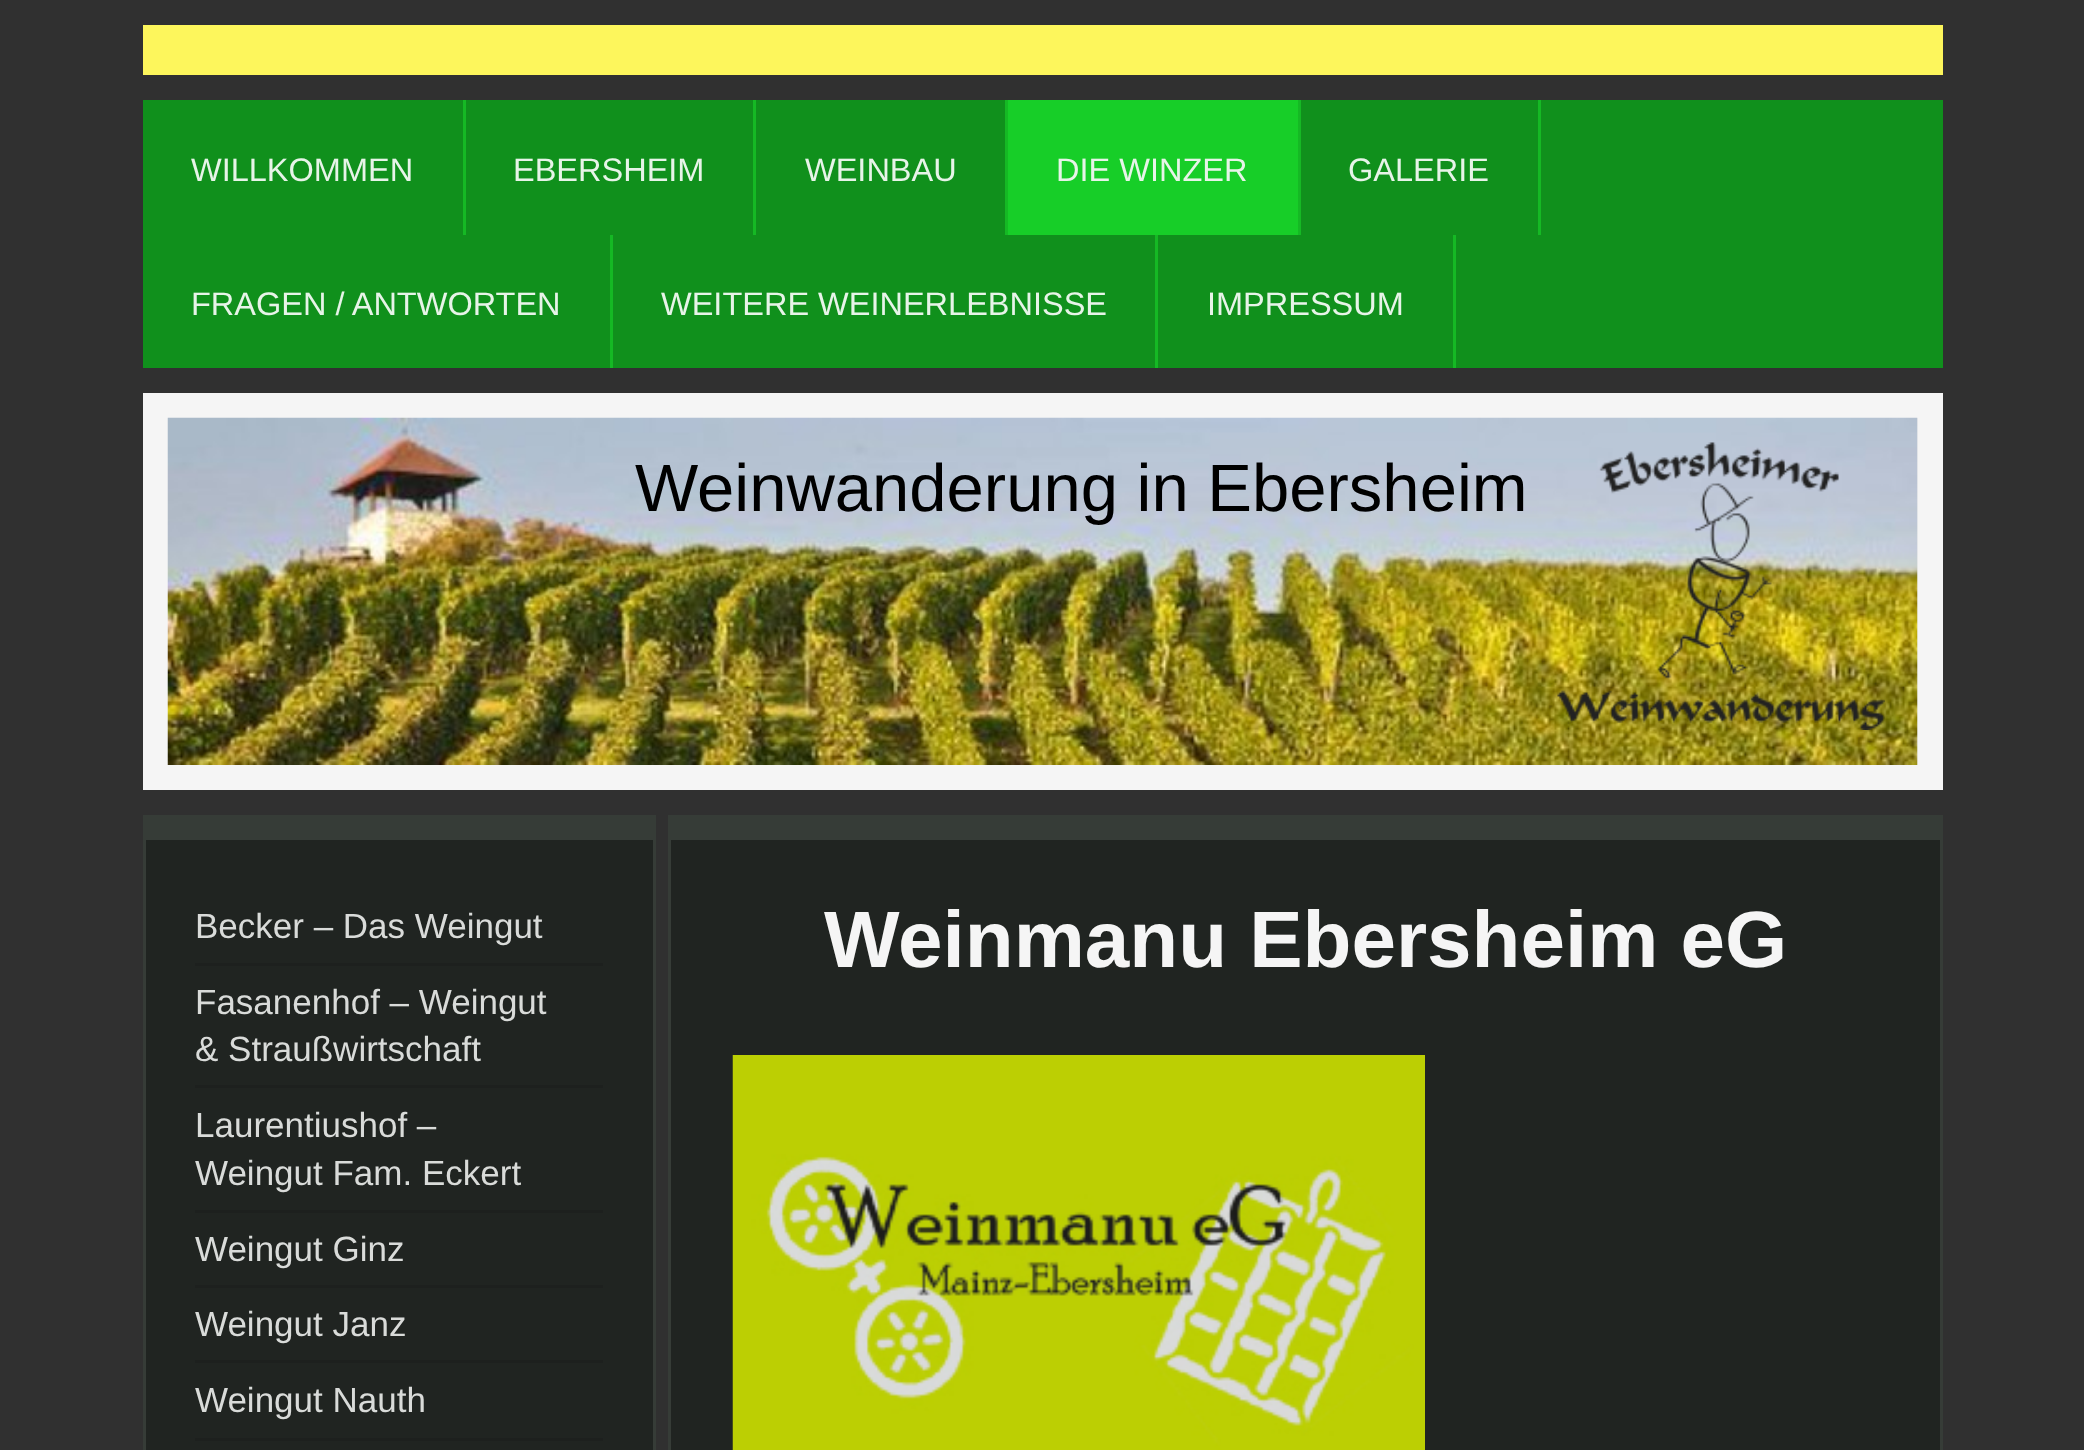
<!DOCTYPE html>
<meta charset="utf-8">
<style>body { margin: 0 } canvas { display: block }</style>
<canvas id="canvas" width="2084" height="1450"></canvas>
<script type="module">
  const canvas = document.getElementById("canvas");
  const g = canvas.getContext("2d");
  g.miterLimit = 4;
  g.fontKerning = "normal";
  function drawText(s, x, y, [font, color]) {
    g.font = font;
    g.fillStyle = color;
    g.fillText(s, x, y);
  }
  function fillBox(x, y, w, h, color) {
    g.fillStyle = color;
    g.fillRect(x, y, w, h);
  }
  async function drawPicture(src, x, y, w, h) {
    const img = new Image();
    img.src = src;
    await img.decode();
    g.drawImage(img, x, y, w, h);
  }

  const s1 = ["32.5px Liberation Sans", "#E7F4E8"];
  const s2 = ["67px Liberation Sans", "#000000"];
  const s3 = ["35px Liberation Sans", "#D9DBD9"];
  const s4 = ["bold 80px Liberation Sans", "#F5F5F5"];

  fillBox(0, 0, 2084, 1450, "#303030");
  fillBox(143, 100, 1800, 268, "#10901C");
  fillBox(143, 25, 1800, 50, "#FDF65C");
  fillBox(463, 100, 3, 135, "#15B924");
  drawText("WILLKOMMEN", 191, 181, s1);
  fillBox(753, 100, 3, 135, "#15B924");
  drawText("EBERSHEIM", 513, 181, s1);
  fillBox(1005, 100, 3, 135, "#15B924");
  drawText("WEINBAU", 805, 181, s1);
  fillBox(1008, 100, 290, 135, "#17CE28");
  fillBox(1298, 100, 3, 135, "#15B924");
  drawText("DIE WINZER", 1056, 181, s1);
  fillBox(1538, 100, 3, 135, "#15B924");
  drawText("GALERIE", 1348, 181, s1);
  fillBox(610, 235, 3, 133, "#15B924");
  drawText("FRAGEN / ANTWORTEN", 191, 315, s1);
  fillBox(1155, 235, 3, 133, "#15B924");
  drawText("WEITERE WEINERLEBNISSE", 661, 315, s1);
  fillBox(1453, 235, 3, 133, "#15B924");
  drawText("IMPRESSUM", 1207, 315, s1);
  fillBox(143, 393, 1800, 397, "#F5F5F5");
  fillBox(1917, 418, 1, 347, "#EEEEEE");
  await drawPicture("pic1.png", 167, 417, 1751, 348);
  drawText("Weinwanderung in Ebersheim", 635, 511, s2);
  await drawPicture("pic2.png", 1557, 442, 328, 288);
  fillBox(146, 840, 507, 610, "#202421");
  fillBox(146, 815, 507, 25, "#363C37");
  fillBox(653, 815, 3, 635, "#363C37");
  fillBox(143, 815, 3, 635, "#363C37");
  fillBox(195, 963, 408, 3, "#1D201E");
  drawText("Becker – Das Weingut", 195, 938, s3);
  fillBox(195, 1085, 408, 3, "#1D201E");
  drawText("Fasanenhof – Weingut", 195, 1014, s3);
  drawText("& Straußwirtschaft", 195, 1061, s3);
  fillBox(195, 1210, 408, 3, "#1D201E");
  drawText("Laurentiushof –", 195, 1137, s3);
  drawText("Weingut Fam. Eckert", 195, 1185, s3);
  fillBox(195, 1285, 408, 3, "#1D201E");
  drawText("Weingut Ginz", 195, 1261, s3);
  fillBox(195, 1360, 408, 3, "#1D201E");
  drawText("Weingut Janz", 195, 1336, s3);
  fillBox(195, 1438, 408, 3, "#1D201E");
  drawText("Weingut Nauth", 195, 1412, s3);
  fillBox(671, 840, 1269, 610, "#202421");
  fillBox(671, 815, 1269, 25, "#363C37");
  fillBox(1940, 815, 3, 635, "#363C37");
  fillBox(668, 815, 3, 635, "#363C37");
  drawText("Weinmanu Ebersheim eG", 824, 967, s4);
  await drawPicture("pic3.png", 732, 1055, 693, 395);
</script>
